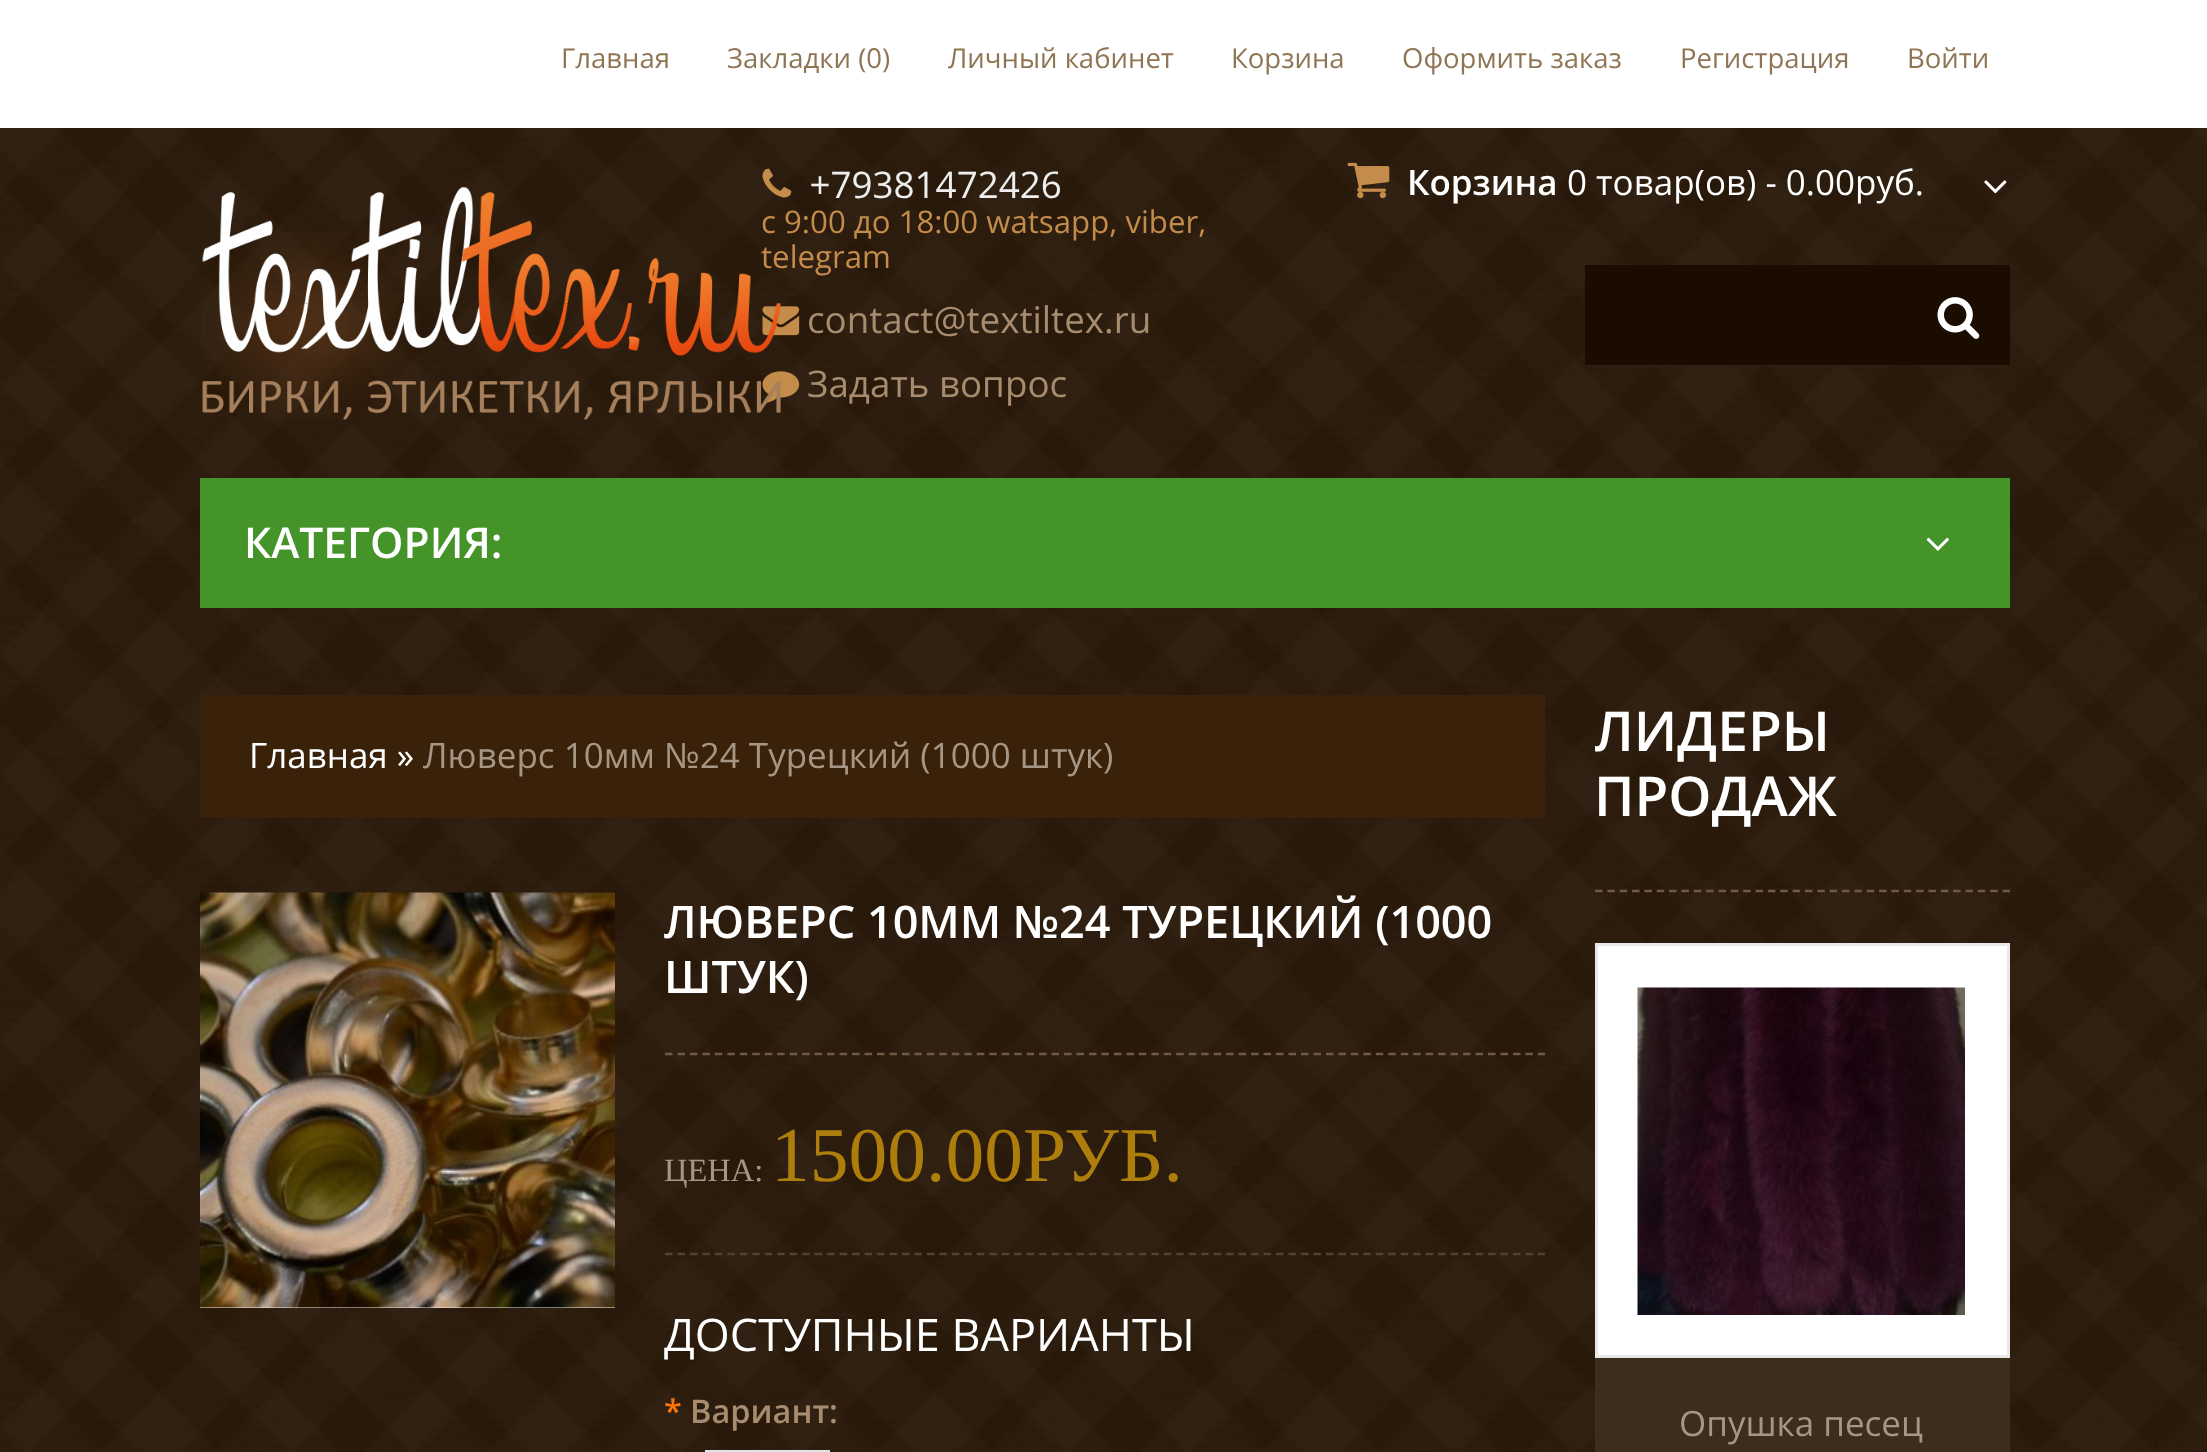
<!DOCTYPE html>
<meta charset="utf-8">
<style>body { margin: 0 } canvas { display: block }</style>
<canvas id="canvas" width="2207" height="1452"></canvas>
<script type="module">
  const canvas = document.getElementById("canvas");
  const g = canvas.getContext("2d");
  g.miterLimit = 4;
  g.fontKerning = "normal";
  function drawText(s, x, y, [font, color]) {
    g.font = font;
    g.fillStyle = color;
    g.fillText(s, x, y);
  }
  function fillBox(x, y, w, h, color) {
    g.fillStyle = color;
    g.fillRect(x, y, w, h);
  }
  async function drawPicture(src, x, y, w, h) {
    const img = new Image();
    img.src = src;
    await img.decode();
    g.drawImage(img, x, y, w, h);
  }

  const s1 = ["27.5px Open Sans", "#907555"];
  const s2 = ["31.2px Open Sans", "#C48C4A"];
  const s3 = ["36.75px Open Sans", "#EEEEEE"];
  const s4 = ["36.75px Open Sans", "#A78C6F"];
  const s5 = ["600 35px Open Sans", "#FFFFFF"];
  const s6 = ["35px Open Sans", "#FFFFFF"];
  const s7 = ["600 42.5px Open Sans", "#FFFFFF"];
  const s8 = ["35px Open Sans", "#A59685"];
  const s9 = ["600 45px Open Sans", "#FFFFFF"];
  const s10 = ["32.5px Liberation Serif", "#A59685"];
  const s11 = ["77.5px Liberation Serif", "#AE7E0D"];
  const s12 = ["45px Open Sans", "#FFFFFF"];
  const s13 = ["600 32.5px Open Sans", "#FF7409"];
  const s14 = ["600 32.5px Open Sans", "#A78C6F"];
  const s15 = ["600 55px Open Sans", "#FFFFFF"];

  fillBox(0, 0, 2207, 1452, "#FFFFFF");
  await drawPicture("pic1.png", 0, 128, 2207, 1324);
  drawText("Главная", 561, 68, s1);
  drawText("Закладки (0)", 727, 68, s1);
  drawText("Личный кабинет", 948, 68, s1);
  drawText("Корзина", 1231, 68, s1);
  drawText("Оформить заказ", 1402, 68, s1);
  drawText("Регистрация", 1680, 68, s1);
  drawText("Войти", 1907, 68, s1);
  await drawPicture("pic3.png", 201, 231, 218, 188);
  await drawPicture("pic4.png", 762, 168, 30, 30);
  drawText("c 9:00 до 18:00 watsapp, viber,", 761, 233, s2);
  drawText("telegram", 761, 268, s2);
  await drawPicture("pic5.png", 762, 306, 38, 30);
  await drawPicture("pic6.png", 762, 371, 38, 32);
  await drawPicture("pic2.png", 202, 186, 579, 234);
  drawText(" +79381472426", 800, 198, s3);
  drawText("contact@textiltex.ru", 807, 333, s4);
  drawText("Задать вопрос", 807, 397, s4);
  await drawPicture("pic7.png", 1347, 162, 43, 37);
  drawText("Корзина", 1407, 195, s5);
  drawText("0 товар(ов) - 0.00руб.", 1567, 195, s6);
  await drawPicture("pic8.png", 1984, 180, 23, 14);
  fillBox(1585, 265, 425, 100, "#1B0C00");
  await drawPicture("pic9.png", 1937, 297, 43, 42);
  fillBox(200, 478, 1810, 130, "#459429");
  drawText("КАТЕГОРИЯ:", 244, 558, s7);
  await drawPicture("pic10.png", 1926, 537, 23, 14);
  fillBox(200, 695, 1345, 123, "#3A210A");
  drawText("Главная »", 249, 768, s6);
  drawText("Люверс 10мм №24 Турецкий (1000 штук)", 423, 768, s8);
  fillBox(200, 1307, 415, 1, "#EFEEEE");
  await drawPicture("pic11.png", 200, 892, 415, 416);
  g.beginPath();
  g.moveTo(665, 1054);
  g.lineTo(1545, 1054);
  g.strokeStyle = "#6F5A44";
  g.lineWidth = 2.5;
  g.setLineDash([7.5, 4.97]);
  g.stroke();
  drawText("ЛЮВЕРС 10ММ №24 ТУРЕЦКИЙ (1000", 664, 938, s9);
  drawText("ШТУК)", 664, 993, s9);
  g.beginPath();
  g.moveTo(665, 1254);
  g.lineTo(1545, 1254);
  g.strokeStyle = "#514232";
  g.stroke();
  drawText("ЦЕНА:", 664, 1181, s10);
  drawText("1500.00РУБ.", 771, 1181, s11);
  drawText("ДОСТУПНЫЕ ВАРИАНТЫ", 664, 1351, s12);
  drawText("*", 664, 1423, s13);
  drawText("Вариант:", 690, 1423, s14);
  fillBox(705, 1450, 125, 2, "#E3E3E3");
  g.beginPath();
  g.moveTo(1595, 891);
  g.lineTo(2010, 891);
  g.strokeStyle = "#6F5A44";
  g.setLineDash([7.5, 4.85]);
  g.stroke();
  g.save();
  g.beginPath();
  g.rect(1595, 695, 415, 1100);
  g.clip();
  drawText("ЛИДЕРЫ", 1594, 751, s15);
  g.restore();
  drawText("ПРОДАЖ", 1594, 816, s15);
  fillBox(1595, 1358, 415, 94, "#3C2D1D");
  g.fillStyle = "#FFFFFF";
  g.beginPath();
  g.rect(1596.5, 944.5, 412, 412);
  g.fill();
  g.strokeStyle = "#E8E8E8";
  g.lineWidth = 3;
  g.setLineDash([]);
  g.stroke();
  await drawPicture("pic12.png", 1637, 987, 328, 328);
  drawText("Опушка песец", 1679, 1436, s8);
</script>
